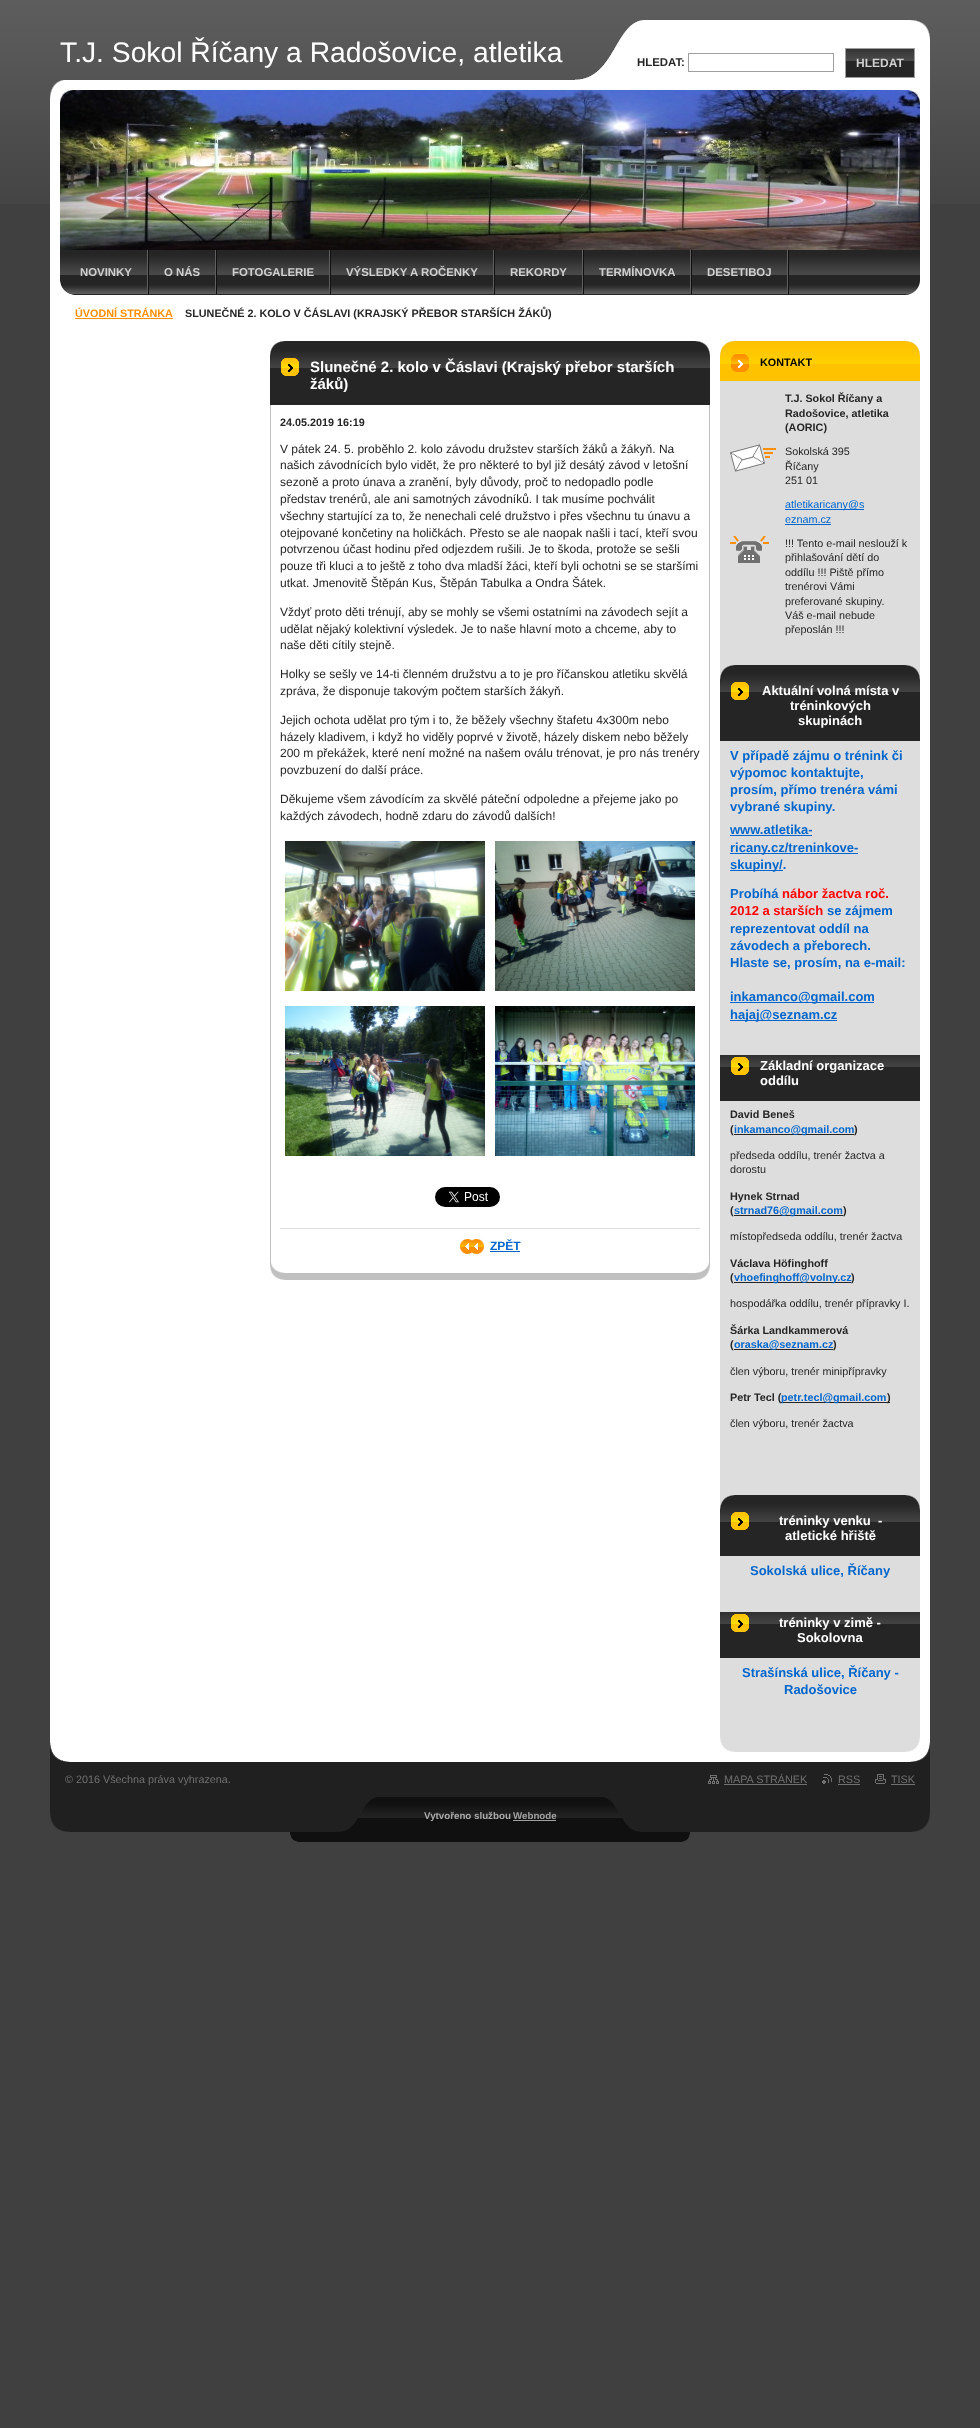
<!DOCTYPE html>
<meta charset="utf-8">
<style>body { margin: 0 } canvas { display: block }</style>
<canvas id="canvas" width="980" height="2428"></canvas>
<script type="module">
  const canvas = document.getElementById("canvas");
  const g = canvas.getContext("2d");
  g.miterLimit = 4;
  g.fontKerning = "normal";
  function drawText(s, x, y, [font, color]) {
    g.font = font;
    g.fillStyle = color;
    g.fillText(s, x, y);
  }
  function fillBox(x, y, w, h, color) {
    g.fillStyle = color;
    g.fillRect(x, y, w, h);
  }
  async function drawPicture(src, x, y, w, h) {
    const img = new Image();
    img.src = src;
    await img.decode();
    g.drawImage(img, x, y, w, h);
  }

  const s1 = ["28.25px Liberation Sans", "#FFFFFF"];
  const s2 = ["bold 11.4px Liberation Sans", "#D0D0D0"];
  const s3 = ["bold 11.4px Liberation Sans", "#252525"];
  const s4 = ["bold 12px Liberation Sans", "#D0D0D0"];
  const s5 = ["bold 10.8px Liberation Sans", "#FF8F00"];
  const s6 = ["bold 10.8px Liberation Sans", "#252525"];
  const s7 = ["bold 15px Liberation Sans", "#FFFFFF"];
  const s8 = ["12px Liberation Sans", "#252525"];
  const s9 = ["bold 12px Liberation Sans", "#0066CC"];
  const s10 = ["bold 10.8px Liberation Sans", "#000000"];
  const s11 = ["10.8px Liberation Sans", "#252525"];
  const s12 = ["10.8px Liberation Sans", "#0066CC"];
  const s13 = ["bold 13px Liberation Sans", "#FFFFFF"];
  const s14 = ["bold 13px Liberation Sans", "#0066CC"];
  const s15 = ["bold 13px Liberation Sans", "#FF0000"];
  const s16 = ["bold 10.8px Liberation Sans", "#0066CC"];
  const s17 = ["10.8px Liberation Sans", "#707070"];
  const s18 = ["bold 9.75px Liberation Sans", "#AAAAAA"];
  const s19 = ["bold 9.75px Liberation Sans", "#A0A0A0"];

  fillBox(0, 0, 980, 2428, "#404040");
  await drawPicture("pic1.png", 0, 0, 980, 204);
  drawText("T.J. Sokol Říčany a Radošovice, atletika", 60, 62, s1);
  await drawPicture("pic2.png", 50, 80, 880, 170);
  await drawPicture("pic4.png", 60, 90, 860, 160);
  await drawPicture("pic3.png", 50, 80, 870, 23);
  await drawPicture("pic5.png", 50, 250, 880, 45);
  fillBox(148, 250, 1, 44, "#101010");
  fillBox(147, 250, 1, 44, "#5F5F5F");
  drawText("NOVINKY", 80, 276, s2);
  fillBox(216, 250, 1, 44, "#101010");
  fillBox(215, 250, 1, 44, "#5F5F5F");
  drawText("O NÁS", 164, 276, s2);
  fillBox(330, 250, 1, 44, "#101010");
  fillBox(329, 250, 1, 44, "#5F5F5F");
  drawText("FOTOGALERIE", 232, 276, s2);
  fillBox(494, 250, 1, 44, "#101010");
  fillBox(493, 250, 1, 44, "#5F5F5F");
  drawText("VÝSLEDKY A ROČENKY", 346, 276, s2);
  fillBox(583, 250, 1, 44, "#101010");
  fillBox(582, 250, 1, 44, "#5F5F5F");
  drawText("REKORDY", 510, 276, s2);
  fillBox(691, 250, 1, 44, "#101010");
  fillBox(690, 250, 1, 44, "#5F5F5F");
  drawText("TERMÍNOVKA", 599, 276, s2);
  fillBox(788, 250, 1, 44, "#101010");
  fillBox(787, 250, 1, 44, "#5F5F5F");
  drawText("DESETIBOJ", 707, 276, s2);
  await drawPicture("pic6.png", 60, 281, 13, 14);
  await drawPicture("pic7.png", 575, 20, 355, 60);
  drawText("HLEDAT:", 637, 66, s3);
  g.strokeStyle = "#9F9F9F";
  g.strokeRect(688.5, 53.5, 145, 18);
  fillBox(846, 61, 68, 16, "#252525");
  await drawPicture("pic8.png", 846, 49, 68, 12);
  g.strokeRect(845.5, 48.5, 69, 29);
  drawText("HLEDAT", 856, 67, s4);
  fillBox(50, 295, 880, 1467, "#FFFFFF");
  drawText("ÚVODNÍ STRÁNKA", 75, 317, s5);
  fillBox(75, 318, 98, 1, "#FF8F00");
  drawText("SLUNEČNÉ 2. KOLO V ČÁSLAVI (KRAJSKÝ PŘEBOR STARŠÍCH ŽÁKŮ)", 185, 317, s6);
  await drawPicture("pic9.png", 50, 1742, 880, 20);
  await drawPicture("pic10.png", 270, 341, 440, 15);
  fillBox(709, 405, 1, 858, "#C0C0C0");
  fillBox(270, 405, 1, 858, "#C0C0C0");
  await drawPicture("pic11.png", 270, 1263, 440, 17);
  fillBox(270, 376, 440, 29, "#252525");
  await drawPicture("pic12.png", 270, 356, 440, 20);
  drawText("Slunečné 2. kolo v Čáslavi (Krajský přebor starších", 310, 372, s7);
  drawText("žáků)", 310, 389, s7);
  drawText("24.05.2019 16:19", 280, 426, s6);
  drawText("V pátek 24. 5. proběhlo 2. kolo závodu družstev starších žáků a žákyň. Na", 280, 453, s8);
  drawText("našich závodnících bylo vidět, že pro některé to byl již desátý závod v letošní", 280, 469, s8);
  drawText("sezoně a proto únava a zranění, byly důvody, proč to nedopadlo podle", 280, 486, s8);
  drawText("představ trenérů, ale ani samotných závodníků. I tak musíme pochválit", 280, 503, s8);
  drawText("všechny startující za to, že nenechali celé družstvo i přes všechnu tu únavu a", 280, 520, s8);
  drawText("otejpované končetiny na holičkách. Přesto se ale naopak našli i tací, kteří svou", 280, 537, s8);
  drawText("potvrzenou účast hodinu před odjezdem rušili. Je to škoda, protože se sešli", 280, 553, s8);
  drawText("pouze tři kluci a to ještě z toho dva mladší žáci, kteří byli ochotni se se staršími", 280, 570, s8);
  drawText("utkat. Jmenovitě Štěpán Kus, Štěpán Tabulka a Ondra Šátek.", 280, 587, s8);
  drawText("Vždyť proto děti trénují, aby se mohly se všemi ostatními na závodech sejít a", 280, 616, s8);
  drawText("udělat nějaký kolektivní výsledek. Je to naše hlavní moto a chceme, aby to", 280, 633, s8);
  drawText("naše děti cítily stejně.", 280, 649, s8);
  drawText("Holky se sešly ve 14-ti členném družstvu a to je pro říčanskou atletiku skvělá", 280, 678, s8);
  drawText("zpráva, že disponuje takovým počtem starších žákyň.", 280, 695, s8);
  drawText("Jejich ochota udělat pro tým i to, že běžely všechny štafetu 4x300m nebo", 280, 724, s8);
  drawText("házely kladivem, i když ho viděly poprvé v životě, házely diskem nebo běžely", 280, 741, s8);
  drawText("200 m překážek, které není možné na našem oválu trénovat, je pro nás trenéry", 280, 757, s8);
  drawText("povzbuzení do další práce.", 280, 774, s8);
  drawText("Děkujeme všem závodícím za skvělé páteční odpoledne a přejeme jako po", 280, 803, s8);
  drawText("každých závodech, hodně zdaru do závodů dalších!", 280, 820, s8);
  await drawPicture("pic13.png", 285, 841, 200, 150);
  await drawPicture("pic14.png", 495, 841, 200, 150);
  await drawPicture("pic15.png", 285, 1006, 200, 150);
  await drawPicture("pic16.png", 495, 1006, 200, 150);
  await drawPicture("pic17.png", 435, 1187, 65, 20);
  fillBox(280, 1228, 420, 1, "#DDDDDD");
  await drawPicture("pic18.png", 460, 1239, 24, 15);
  drawText("ZPĚT", 490, 1250, s9);
  fillBox(490, 1251, 30, 1, "#0066CC");
  fillBox(720, 381, 200, 1357, "#DDDDDD");
  await drawPicture("pic19.png", 720, 1738, 200, 14);
  await drawPicture("pic21.png", 720, 341, 200, 31);
  await drawPicture("pic20.png", 720, 341, 200, 11);
  fillBox(720, 372, 200, 9, "#FFC200");
  drawText("KONTAKT", 760, 366, s10);
  drawText("T.J. Sokol Říčany a", 785, 402, s6);
  drawText("Radošovice, atletika", 785, 417, s6);
  drawText("(AORIC)", 785, 431, s6);
  await drawPicture("pic22.png", 730, 444, 46, 28);
  drawText("Sokolská 395", 785, 455, s11);
  drawText("Říčany", 785, 470, s11);
  drawText("251 01", 785, 484, s11);
  fillBox(785, 509, 79, 1, "#0066CC");
  drawText("atletikaricany@s", 785, 508, s12);
  drawText("eznam.cz", 785, 523, s12);
  fillBox(785, 524, 46, 1, "#0066CC");
  await drawPicture("pic23.png", 730, 536, 39, 27);
  drawText("!!! Tento e-mail neslouží k", 785, 547, s11);
  drawText("přihlašování dětí do", 785, 561, s11);
  drawText("oddílu !!! Piště přímo", 785, 576, s11);
  drawText("trenérovi Vámi", 785, 590, s11);
  drawText("preferované skupiny.", 785, 605, s11);
  drawText("Váš e-mail nebude", 785, 619, s11);
  drawText("přeposlán !!!", 785, 633, s11);
  await drawPicture("pic24.png", 720, 665, 200, 15);
  fillBox(720, 700, 200, 41, "#252525");
  await drawPicture("pic25.png", 720, 680, 200, 20);
  drawText("Aktuální volná místa v", 762, 695, s13);
  drawText("tréninkových", 790, 710, s13);
  drawText("skupinách", 798, 725, s13);
  drawText("V případě zájmu o trénink či", 730, 760, s14);
  drawText("výpomoc kontaktujte,", 730, 777, s14);
  drawText("prosím, přímo trenéra vámi", 730, 794, s14);
  drawText("vybrané skupiny.", 730, 811, s14);
  drawText("www.atletika-", 730, 834, s14);
  fillBox(730, 835, 82, 1, "#0066CC");
  fillBox(730, 853, 128, 1, "#0066CC");
  drawText("ricany.cz/treninkove-", 730, 852, s14);
  fillBox(730, 870, 53, 1, "#0066CC");
  drawText("skupiny/.", 730, 869, s14);
  drawText("Probíhá", 730, 898, s14);
  drawText("nábor žactva roč.", 782, 898, s15);
  drawText("2012 a starších", 730, 915, s15);
  drawText("se zájmem", 827, 915, s14);
  drawText("reprezentovat oddíl na", 730, 933, s14);
  drawText("závodech a přeborech.", 730, 950, s14);
  drawText("Hlaste se, prosím, na e-mail:", 730, 967, s14);
  fillBox(730, 1002, 144, 1, "#0066CC");
  drawText("inkamanco@gmail.com", 730, 1001, s14);
  fillBox(730, 1020, 107, 1, "#0066CC");
  drawText("hajaj@seznam.cz", 730, 1019, s14);
  fillBox(720, 1075, 200, 26, "#252525");
  await drawPicture("pic25.png", 720, 1055, 200, 20);
  drawText("Základní organizace", 760, 1070, s13);
  drawText("oddílu", 760, 1085, s13);
  drawText("David Beneš", 730, 1118, s6);
  drawText("(", 730, 1133, s6);
  fillBox(734, 1134, 120, 1, "#252525");
  drawText("inkamanco@gmail.com", 734, 1133, s16);
  drawText(")", 854, 1133, s6);
  drawText("předseda oddílu, trenér žactva a", 730, 1159, s11);
  drawText("dorostu", 730, 1173, s11);
  drawText("Hynek Strnad", 730, 1200, s6);
  drawText("(", 730, 1214, s6);
  fillBox(734, 1215, 109, 1, "#252525");
  drawText("strnad76@gmail.com", 734, 1214, s16);
  drawText(")", 843, 1214, s6);
  drawText("místopředseda oddílu, trenér žactva", 730, 1240, s11);
  drawText("Václava Höfinghoff", 730, 1267, s6);
  drawText("(", 730, 1281, s6);
  fillBox(734, 1282, 117, 1, "#252525");
  drawText("vhoefinghoff@volny.cz", 734, 1281, s16);
  drawText(")", 851, 1281, s6);
  drawText("hospodářka oddílu, trenér přípravky I.", 730, 1307, s11);
  drawText("Šárka Landkammerová", 730, 1334, s6);
  drawText("(", 730, 1348, s6);
  fillBox(734, 1349, 99, 1, "#252525");
  drawText("oraska@seznam.cz", 734, 1348, s16);
  drawText(")", 833, 1348, s6);
  drawText("člen výboru, trenér minipřípravky", 730, 1375, s11);
  drawText("Petr Tecl (", 730, 1401, s6);
  fillBox(781, 1402, 109, 1, "#252525");
  drawText("petr.tecl@gmail.com", 781, 1401, s16);
  drawText(")", 887, 1401, s6);
  drawText("člen výboru, trenér žactva", 730, 1427, s11);
  await drawPicture("pic24.png", 720, 1495, 200, 15);
  fillBox(720, 1530, 200, 26, "#252525");
  await drawPicture("pic25.png", 720, 1510, 200, 20);
  drawText("tréninky venku  -", 779, 1525, s13);
  drawText("atletické hřiště", 785, 1540, s13);
  drawText("Sokolská ulice, Říčany", 750, 1575, s14);
  fillBox(720, 1632, 200, 26, "#252525");
  await drawPicture("pic25.png", 720, 1612, 200, 20);
  drawText("tréninky v zimě -", 779, 1627, s13);
  drawText("Sokolovna", 797, 1642, s13);
  drawText("Strašínská ulice, Říčany -", 742, 1677, s14);
  drawText("Radošovice", 784, 1694, s14);
  fillBox(50, 1762, 880, 35, "#202020");
  drawText("© 2016 Všechna práva vyhrazena.", 65, 1783, s17);
  await drawPicture("pic26.png", 708, 1775, 11, 9);
  drawText("MAPA STRÁNEK", 724, 1783, s17);
  fillBox(724, 1784, 83, 1, "#707070");
  await drawPicture("pic27.png", 822, 1774, 10, 10);
  drawText("RSS", 838, 1783, s17);
  fillBox(838, 1784, 22, 1, "#707070");
  await drawPicture("pic28.png", 875, 1774, 11, 10);
  drawText("TISK", 891, 1783, s17);
  fillBox(891, 1784, 24, 1, "#707070");
  await drawPicture("pic29.png", 50, 1797, 880, 45);
  drawText("Vytvořeno službou", 424, 1819, s18);
  drawText("Webnode", 513, 1819, s19);
  fillBox(513, 1820, 43, 1, "#A0A0A0");
</script>
